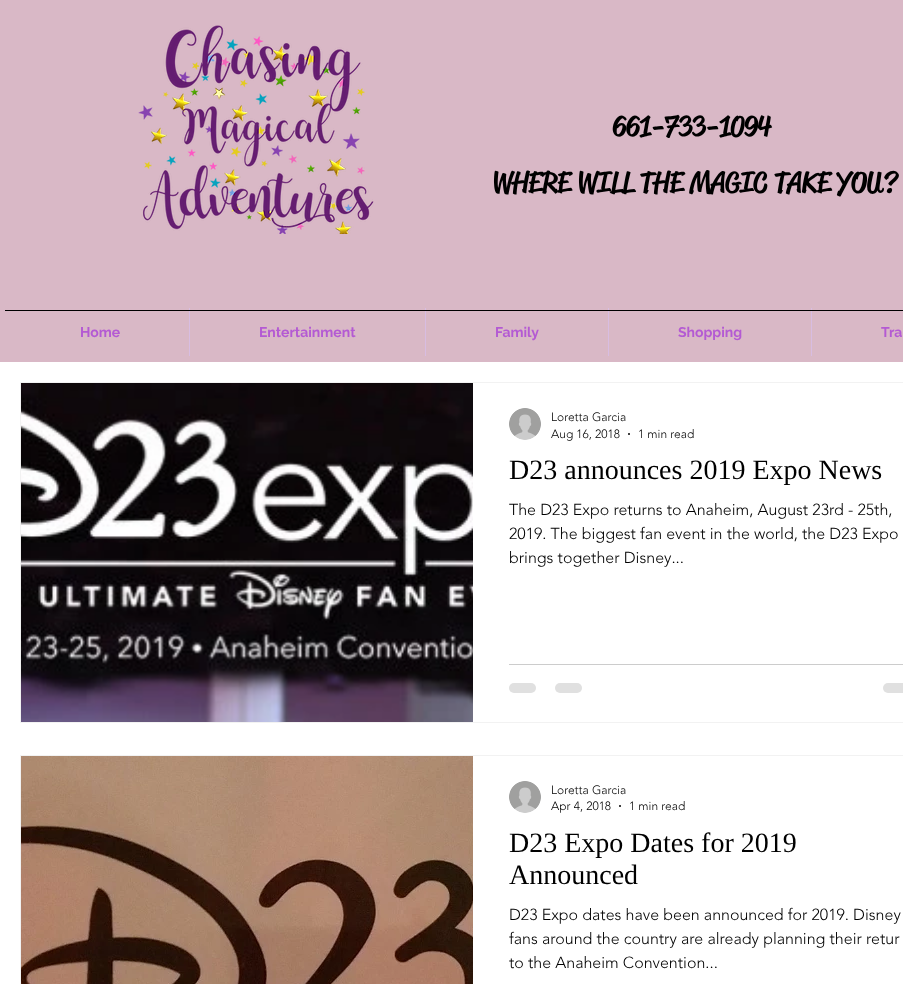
<!DOCTYPE html>
<meta charset="utf-8">
<style>body { margin: 0 } canvas { display: block }</style>
<canvas id="canvas" width="903" height="984"></canvas>
<script type="module">
  const canvas = document.getElementById("canvas");
  const g = canvas.getContext("2d");
  g.miterLimit = 4;
  g.fontKerning = "normal";
  function drawText(s, x, y, [font, color]) {
    g.font = font;
    g.fillStyle = color;
    g.fillText(s, x, y);
  }
  function fillBox(x, y, w, h, color) {
    g.fillStyle = color;
    g.fillRect(x, y, w, h);
  }
  function fillRounded(x, y, w, h, r, color) {
    g.fillStyle = color;
    g.beginPath();
    g.roundRect(x, y, w, h, r);
    g.fill();
  }
  async function drawPicture(src, x, y, w, h) {
    const img = new Image();
    img.src = src;
    await img.decode();
    g.drawImage(img, x, y, w, h);
  }

  const s1 = ["500 29px 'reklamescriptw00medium'", "#000000"];
  const s2 = ["bold 14px Raleway", "#B45AD3"];
  const s3 = ["300 12px 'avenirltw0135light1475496'", "#000000"];
  const s4 = ["28px Liberation Serif", "#000000"];
  const s5 = ["300 16px 'avenirltw0135light1475496'", "#000000"];

  fillBox(0, 0, 903, 984, "#D9B8C6");
  await drawPicture("pic1.png", 138, 25, 236, 209);
  drawText("661-733-1094", 613, 136, s1);
  drawText("WHERE WILL THE MAGIC TAKE YOU?", 492, 192, s1);
  fillBox(189, 308, 1, 48, "#D8BDE2");
  fillBox(425, 308, 1, 48, "#D8BDE2");
  fillBox(608, 308, 1, 48, "#D8BDE2");
  fillBox(811, 308, 1, 48, "#D8BDE2");
  fillBox(5, 310, 898, 1, "#000000");
  drawText("Home", 80, 337, s2);
  drawText("Entertainment", 259, 337, s2);
  drawText("Family", 495, 337, s2);
  drawText("Shopping", 678, 337, s2);
  drawText("Tra", 881, 337, s2);
  fillBox(0, 362, 903, 622, "#FFFFFF");
  g.strokeStyle = "#F2F2F2";
  g.strokeRect(20.5, 382.5, 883, 340);
  await drawPicture("pic2.png", 21, 383, 452, 339);
  await drawPicture("pic3.png", 509, 408, 32, 32);
  drawText("Loretta Garcia", 551, 421, s3);
  drawText("Aug 16, 2018", 551, 438, s3);
  g.beginPath();
  g.arc(629, 434, 1, 0, Math.PI * 2);
  g.fill();
  drawText("1 min read", 638, 438, s3);
  drawText("D23 announces 2019 Expo News", 509, 479, s4);
  drawText("The D23 Expo returns to Anaheim, August 23rd - 25th,", 509, 515, s5);
  drawText("2019. The biggest fan event in the world, the D23 Expo", 509, 539, s5);
  drawText("brings together Disney...", 509, 563, s5);
  fillBox(509, 664, 394, 1, "#CCCCCC");
  fillRounded(509, 683, 27, 10, 5, "#E0E0E0");
  fillRounded(555, 683, 27, 10, 5, "#E0E0E0");
  fillRounded(883, 683, 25, 10, 5, "#E0E0E0");
  g.strokeRect(20.5, 755.5, 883, 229);
  await drawPicture("pic4.png", 21, 756, 452, 228);
  await drawPicture("pic3.png", 509, 781, 32, 32);
  drawText("Loretta Garcia", 551, 794, s3);
  drawText("Apr 4, 2018", 551, 810, s3);
  g.beginPath();
  g.arc(620, 806, 1, 0, Math.PI * 2);
  g.fill();
  drawText("1 min read", 629, 810, s3);
  drawText("D23 Expo Dates for 2019", 509, 852, s4);
  drawText("Announced", 509, 884, s4);
  drawText("D23 Expo dates have been announced for 2019. Disney", 509, 920, s5);
  drawText("fans around the country are already planning their retur", 509, 944, s5);
  drawText("to the Anaheim Convention...", 509, 968, s5);
</script>
